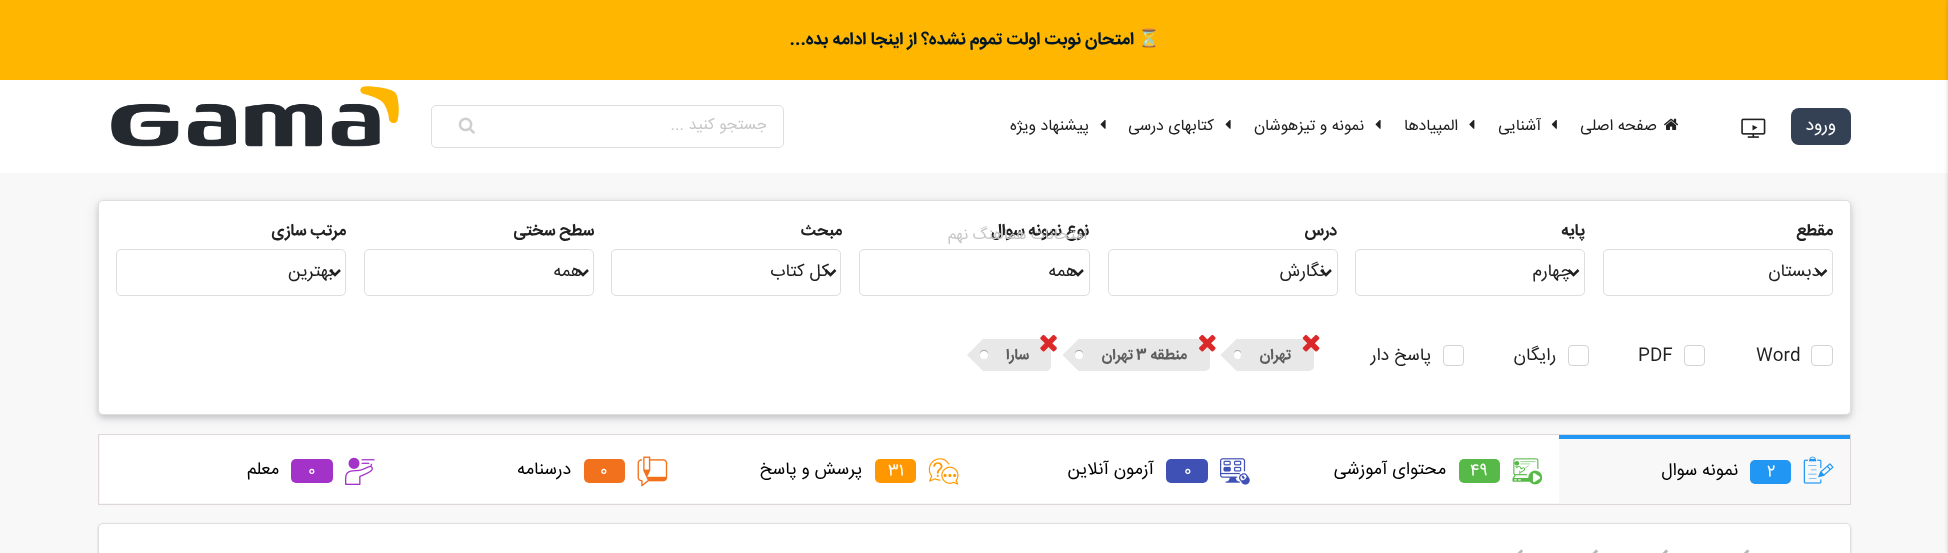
<!DOCTYPE html>
<meta charset="utf-8">
<style>body { margin: 0 } canvas { display: block }</style>
<canvas id="canvas" width="1948" height="553"></canvas>
<script type="module">
  const canvas = document.getElementById("canvas");
  const g = canvas.getContext("2d");
  g.miterLimit = 4;
  g.fontKerning = "normal";
  function drawText(s, x, y, [font, color]) {
    g.font = font;
    g.fillStyle = color;
    g.fillText(s, x, y);
  }
  function fillBox(x, y, w, h, color) {
    g.fillStyle = color;
    g.fillRect(x, y, w, h);
  }
  function fillRounded(x, y, w, h, r, color) {
    g.fillStyle = color;
    g.beginPath();
    g.roundRect(x, y, w, h, r);
    g.fill();
  }
  async function drawPicture(src, x, y, w, h) {
    const img = new Image();
    img.src = src;
    await img.decode();
    g.drawImage(img, x, y, w, h);
  }

  const s1 = ["bold 17.5px Noto Color Emoji", "#011728"];
  const s2 = ["bold 17.5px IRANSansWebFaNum", "#011728"];
  const s3 = ["17.5px IRANSansWebFaNum", "#FFFFFF"];
  const s4 = ["15.75px IRANSansWebFaNum", "#212121"];
  const s5 = ["bold 16.25px IRANSansWebFaNum", "#212121"];
  const s6 = ["15.75px IRANSansWebFaNum", "#C7C7C7"];
  const s7 = ["17.5px IRANSansWebFaNum", "#212121"];
  const s8 = ["bold 15px IRANSansWebFaNum", "#5D5D5D"];
  const s9 = ["15.75px IRANSansWebFaNum", "#FFFFFF"];
  const s10 = ["17.5px IRANSansWebFaNum", "#000000"];

  fillBox(0, 0, 1948, 553, "#F8F8F9");
  fillBox(0, 0, 1948, 80, "#FFB600");
  g.direction = "rtl";
  drawText("⏳", 1160, 44, s1);
  drawText("امتحان نوبت اولت تموم نشده؟ از اینجا ادامه بده...", 1134, 44, s2);
  fillBox(0, 80, 1948, 93, "#FFFFFF");
  g.fillStyle = "rgba(0, 0, 0, 0.5)";
  g.filter = "blur(3px)";
  g.beginPath();
  g.rect(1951, 0, 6, 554);
  g.fill();
  g.filter = "none";
  fillRounded(1791, 108, 60, 37, 8, "#344054");
  drawText("ورود", 1836, 130, s3);
  await drawPicture("pic1.png", 1741, 118, 25, 20);
  g.fillStyle = "#212121";
  g.beginPath();
  g.moveTo(1757.5, 127.5);
  g.lineTo(1752.5, 130.5);
  g.lineTo(1752.5, 125);
  g.closePath();
  g.fill();
  await drawPicture("pic2.png", 1664, 118, 15, 12);
  drawText("صفحه اصلی", 1657, 130, s4);
  await drawPicture("pic3.png", 1551, 119, 6, 10);
  drawText("آشنایی", 1541, 130, s4);
  await drawPicture("pic4.png", 1469, 119, 6, 10);
  drawText("المپیادها", 1458, 130, s4);
  await drawPicture("pic5.png", 1375, 119, 6, 10);
  drawText("نمونه و تیزهوشان", 1364, 130, s4);
  await drawPicture("pic5.png", 1225, 119, 6, 10);
  drawText("کتابهای درسی", 1214, 130, s4);
  await drawPicture("pic5.png", 1100, 119, 6, 10);
  drawText("پیشنهاد ویژه", 1089, 130, s4);
  g.strokeStyle = "#DED7D7";
  g.strokeRect(98.5, 434.5, 1752, 70);
  fillBox(1559, 435, 291, 4, "#2196F3");
  fillBox(100, 435, 1459, 68, "#FFFFFF");
  g.fillStyle = "rgba(34, 36, 38, 0.15)";
  g.filter = "blur(6px)";
  g.beginPath();
  g.roundRect(98, 203, 1753, 215, 5);
  g.fill();
  g.filter = "none";
  g.fillStyle = "rgba(34, 36, 38, 0.12)";
  g.filter = "blur(2.5px)";
  g.beginPath();
  g.roundRect(98, 203, 1753, 215, 5);
  g.fill();
  g.filter = "none";
  fillRounded(98, 200, 1753, 215, 5, "#FFFFFF");
  g.beginPath();
  g.roundRect(98.5, 200.5, 1752, 214, 4.5);
  g.strokeStyle = "rgba(34, 36, 38, 0.15)";
  g.stroke();
  drawText("نوع نمونه سوال", 1089, 235, s5);
  drawText("امتحانات هماهنگ نهم", 1087, 239, s6);
  g.beginPath();
  g.roundRect(431.5, 105.5, 352, 42, 4.5);
  g.strokeStyle = "#DEDEDE";
  g.stroke();
  g.save();
  g.beginPath();
  g.rect(475, 113, 291, 26);
  g.clip();
  drawText("جستجو کنید ...", 767, 129, s6);
  g.restore();
  await drawPicture("pic6.png", 458, 117, 17, 17);
  await drawPicture("pic7.png", 111, 86, 288, 61);
  drawText("مقطع", 1833, 235, s5);
  g.beginPath();
  g.roundRect(1603.5, 249.5, 229, 46, 4.5);
  g.stroke();
  g.beginPath();
  g.moveTo(1816.5, 270);
  g.lineTo(1821.5, 275);
  g.lineTo(1826.5, 270);
  g.strokeStyle = "#212121";
  g.lineWidth = 2.5;
  g.stroke();
  drawText("دبستان", 1820, 276, s7);
  drawText("پایه", 1585, 235, s5);
  g.beginPath();
  g.roundRect(1355.5, 249.5, 229, 46, 4.5);
  g.strokeStyle = "#DEDEDE";
  g.lineWidth = 1;
  g.stroke();
  g.beginPath();
  g.moveTo(1568.5, 270);
  g.lineTo(1573.5, 275);
  g.lineTo(1578.5, 270);
  g.strokeStyle = "#212121";
  g.lineWidth = 2.5;
  g.stroke();
  drawText("چهارم", 1572, 276, s7);
  drawText("درس", 1337, 235, s5);
  g.beginPath();
  g.roundRect(1108.5, 249.5, 229, 46, 4.5);
  g.strokeStyle = "#DEDEDE";
  g.lineWidth = 1;
  g.stroke();
  g.beginPath();
  g.moveTo(1321, 270);
  g.lineTo(1326, 275);
  g.lineTo(1331, 270);
  g.strokeStyle = "#212121";
  g.lineWidth = 2.5;
  g.stroke();
  drawText("نگارش", 1325, 276, s7);
  g.beginPath();
  g.roundRect(859.5, 249.5, 230, 46, 4.5);
  g.strokeStyle = "#DEDEDE";
  g.lineWidth = 1;
  g.stroke();
  g.beginPath();
  g.moveTo(1073, 270);
  g.lineTo(1078, 275);
  g.lineTo(1083, 270);
  g.strokeStyle = "#212121";
  g.lineWidth = 2.5;
  g.stroke();
  drawText("همه", 1077, 276, s7);
  drawText("مبحث", 842, 235, s5);
  g.beginPath();
  g.roundRect(611.5, 249.5, 229, 46, 4.5);
  g.strokeStyle = "#DEDEDE";
  g.lineWidth = 1;
  g.stroke();
  g.beginPath();
  g.moveTo(825.5, 270);
  g.lineTo(830.5, 275);
  g.lineTo(835.5, 270);
  g.strokeStyle = "#212121";
  g.lineWidth = 2.5;
  g.stroke();
  drawText("کل کتاب", 829, 276, s7);
  drawText("سطح سختی", 594, 235, s5);
  g.beginPath();
  g.roundRect(364.5, 249.5, 229, 46, 4.5);
  g.strokeStyle = "#DEDEDE";
  g.lineWidth = 1;
  g.stroke();
  g.beginPath();
  g.moveTo(578, 270);
  g.lineTo(583, 275);
  g.lineTo(588, 270);
  g.strokeStyle = "#212121";
  g.lineWidth = 2.5;
  g.stroke();
  drawText("همه", 582, 276, s7);
  drawText("مرتب سازی", 346, 235, s5);
  g.beginPath();
  g.roundRect(116.5, 249.5, 229, 46, 4.5);
  g.strokeStyle = "#DEDEDE";
  g.lineWidth = 1;
  g.stroke();
  g.beginPath();
  g.moveTo(330, 270);
  g.lineTo(335, 275);
  g.lineTo(340, 270);
  g.strokeStyle = "#212121";
  g.lineWidth = 2.5;
  g.stroke();
  drawText("بهترین", 334, 276, s7);
  g.beginPath();
  g.roundRect(1811.5, 345.5, 21, 20, 3.5);
  g.strokeStyle = "#D4D4D5";
  g.lineWidth = 1;
  g.stroke();
  g.direction = "ltr";
  drawText("Word", 1756, 360, s7);
  g.beginPath();
  g.roundRect(1684.5, 345.5, 20, 20, 3.5);
  g.stroke();
  drawText("PDF", 1638, 360, s7);
  g.beginPath();
  g.roundRect(1568.5, 345.5, 20, 20, 3.5);
  g.stroke();
  g.direction = "rtl";
  drawText("رایگان", 1556, 360, s7);
  g.beginPath();
  g.roundRect(1443.5, 345.5, 20, 20, 3.5);
  g.stroke();
  drawText("پاسخ دار", 1431, 360, s7);
  g.fillStyle = "#E8E8E8";
  g.beginPath();
  g.roundRect(1238, 339, 76, 32, [0, 5, 5, 0]);
  g.fill();
  await drawPicture("pic8.png", 1302, 334, 18, 18);
  g.beginPath();
  g.moveTo(1220.5, 355);
  g.lineTo(1237, 338.5);
  g.lineTo(1253.5, 355);
  g.lineTo(1237, 371.5);
  g.closePath();
  g.fill();
  drawText("تهران", 1291, 359, s8);
  g.fillStyle = "rgba(0, 0, 0, 0.3)";
  g.filter = "blur(0.5px)";
  g.beginPath();
  g.roundRect(1234, 350, 7, 8, 3.5);
  g.fill();
  g.filter = "none";
  fillRounded(1234, 351, 7, 8, 3.5, "#FFFFFF");
  g.fillStyle = "#E8E8E8";
  g.beginPath();
  g.roundRect(1079, 339, 131, 32, [0, 5, 5, 0]);
  g.fill();
  await drawPicture("pic9.png", 1199, 334, 17, 18);
  g.beginPath();
  g.moveTo(1062.5, 355);
  g.lineTo(1079, 338.5);
  g.lineTo(1095.5, 355);
  g.lineTo(1079, 371.5);
  g.closePath();
  g.fill();
  drawText("منطقه", 1187, 359, s8);
  g.direction = "ltr";
  drawText("3", 1136, 359, s8);
  g.direction = "rtl";
  drawText("تهران", 1133, 359, s8);
  g.fillStyle = "rgba(0, 0, 0, 0.3)";
  g.filter = "blur(0.5px)";
  g.beginPath();
  g.roundRect(1075, 350, 8, 8, 4);
  g.fill();
  g.filter = "none";
  g.fillStyle = "#FFFFFF";
  g.beginPath();
  g.arc(1079, 355, 4, 0, Math.PI * 2);
  g.fill();
  g.fillStyle = "#E8E8E8";
  g.beginPath();
  g.roundRect(984, 339, 67, 32, [0, 5, 5, 0]);
  g.fill();
  await drawPicture("pic10.png", 1040, 334, 17, 18);
  g.beginPath();
  g.moveTo(967, 355);
  g.lineTo(983.5, 338.5);
  g.lineTo(1000, 355);
  g.lineTo(983.5, 371.5);
  g.closePath();
  g.fill();
  drawText("سارا", 1029, 359, s8);
  g.fillStyle = "rgba(0, 0, 0, 0.3)";
  g.filter = "blur(0.5px)";
  g.beginPath();
  g.roundRect(980, 350, 8, 8, 4);
  g.fill();
  g.filter = "none";
  g.fillStyle = "#FFFFFF";
  g.beginPath();
  g.arc(984, 355, 4, 0, Math.PI * 2);
  g.fill();
  await drawPicture("pic11.png", 1803, 456, 31, 28);
  fillRounded(1750, 460, 41, 24, 5, "#2196F3");
  g.direction = "ltr";
  drawText("2", 1767, 476, s9);
  g.direction = "rtl";
  drawText("نمونه سوال", 1738, 475, s10);
  await drawPicture("pic12.png", 1512, 458, 31, 27);
  fillRounded(1459, 459, 41, 24, 5, "#57B947");
  g.direction = "ltr";
  drawText("49", 1470, 475, s9);
  g.direction = "rtl";
  drawText("محتوای آموزشی", 1446, 474, s10);
  await drawPicture("pic13.png", 1220, 458, 30, 27);
  fillRounded(1166, 459, 42, 24, 5, "#3F51B5");
  g.direction = "ltr";
  drawText("0", 1184, 475, s9);
  g.direction = "rtl";
  drawText("آزمون آنلاین", 1154, 474, s10);
  await drawPicture("pic14.png", 928, 458, 31, 27);
  fillRounded(875, 459, 41, 24, 5, "#FF9800");
  g.direction = "ltr";
  drawText("31", 888, 475, s9);
  g.direction = "rtl";
  drawText("پرسش و پاسخ", 862, 474, s10);
  await drawPicture("pic15.png", 637, 456, 31, 31);
  fillRounded(584, 459, 41, 24, 5, "#F2711C");
  g.direction = "ltr";
  drawText("0", 600, 475, s9);
  g.direction = "rtl";
  drawText("درسنامه", 571, 474, s10);
  await drawPicture("pic16.png", 345, 457, 30, 28);
  fillRounded(291, 459, 42, 24, 5, "#A333C8");
  g.direction = "ltr";
  drawText("0", 308, 475, s9);
  g.direction = "rtl";
  drawText("معلم", 279, 474, s10);
  g.fillStyle = "rgba(34, 36, 38, 0.15)";
  g.filter = "blur(1px)";
  g.beginPath();
  g.roundRect(98, 524, 1753, 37, 5);
  g.fill();
  g.filter = "none";
  fillRounded(98, 523, 1753, 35, 5, "#FFFFFF");
  g.beginPath();
  g.roundRect(98.5, 523.5, 1752, 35, 4.5);
  g.strokeStyle = "rgba(34, 36, 38, 0.15)";
  g.stroke();
  await drawPicture("pic17.png", 1744, 549, 6, 4);
  await drawPicture("pic18.png", 1662, 549, 6, 4);
  await drawPicture("pic18.png", 1592, 549, 6, 4);
  await drawPicture("pic18.png", 1517, 549, 6, 4);
</script>
